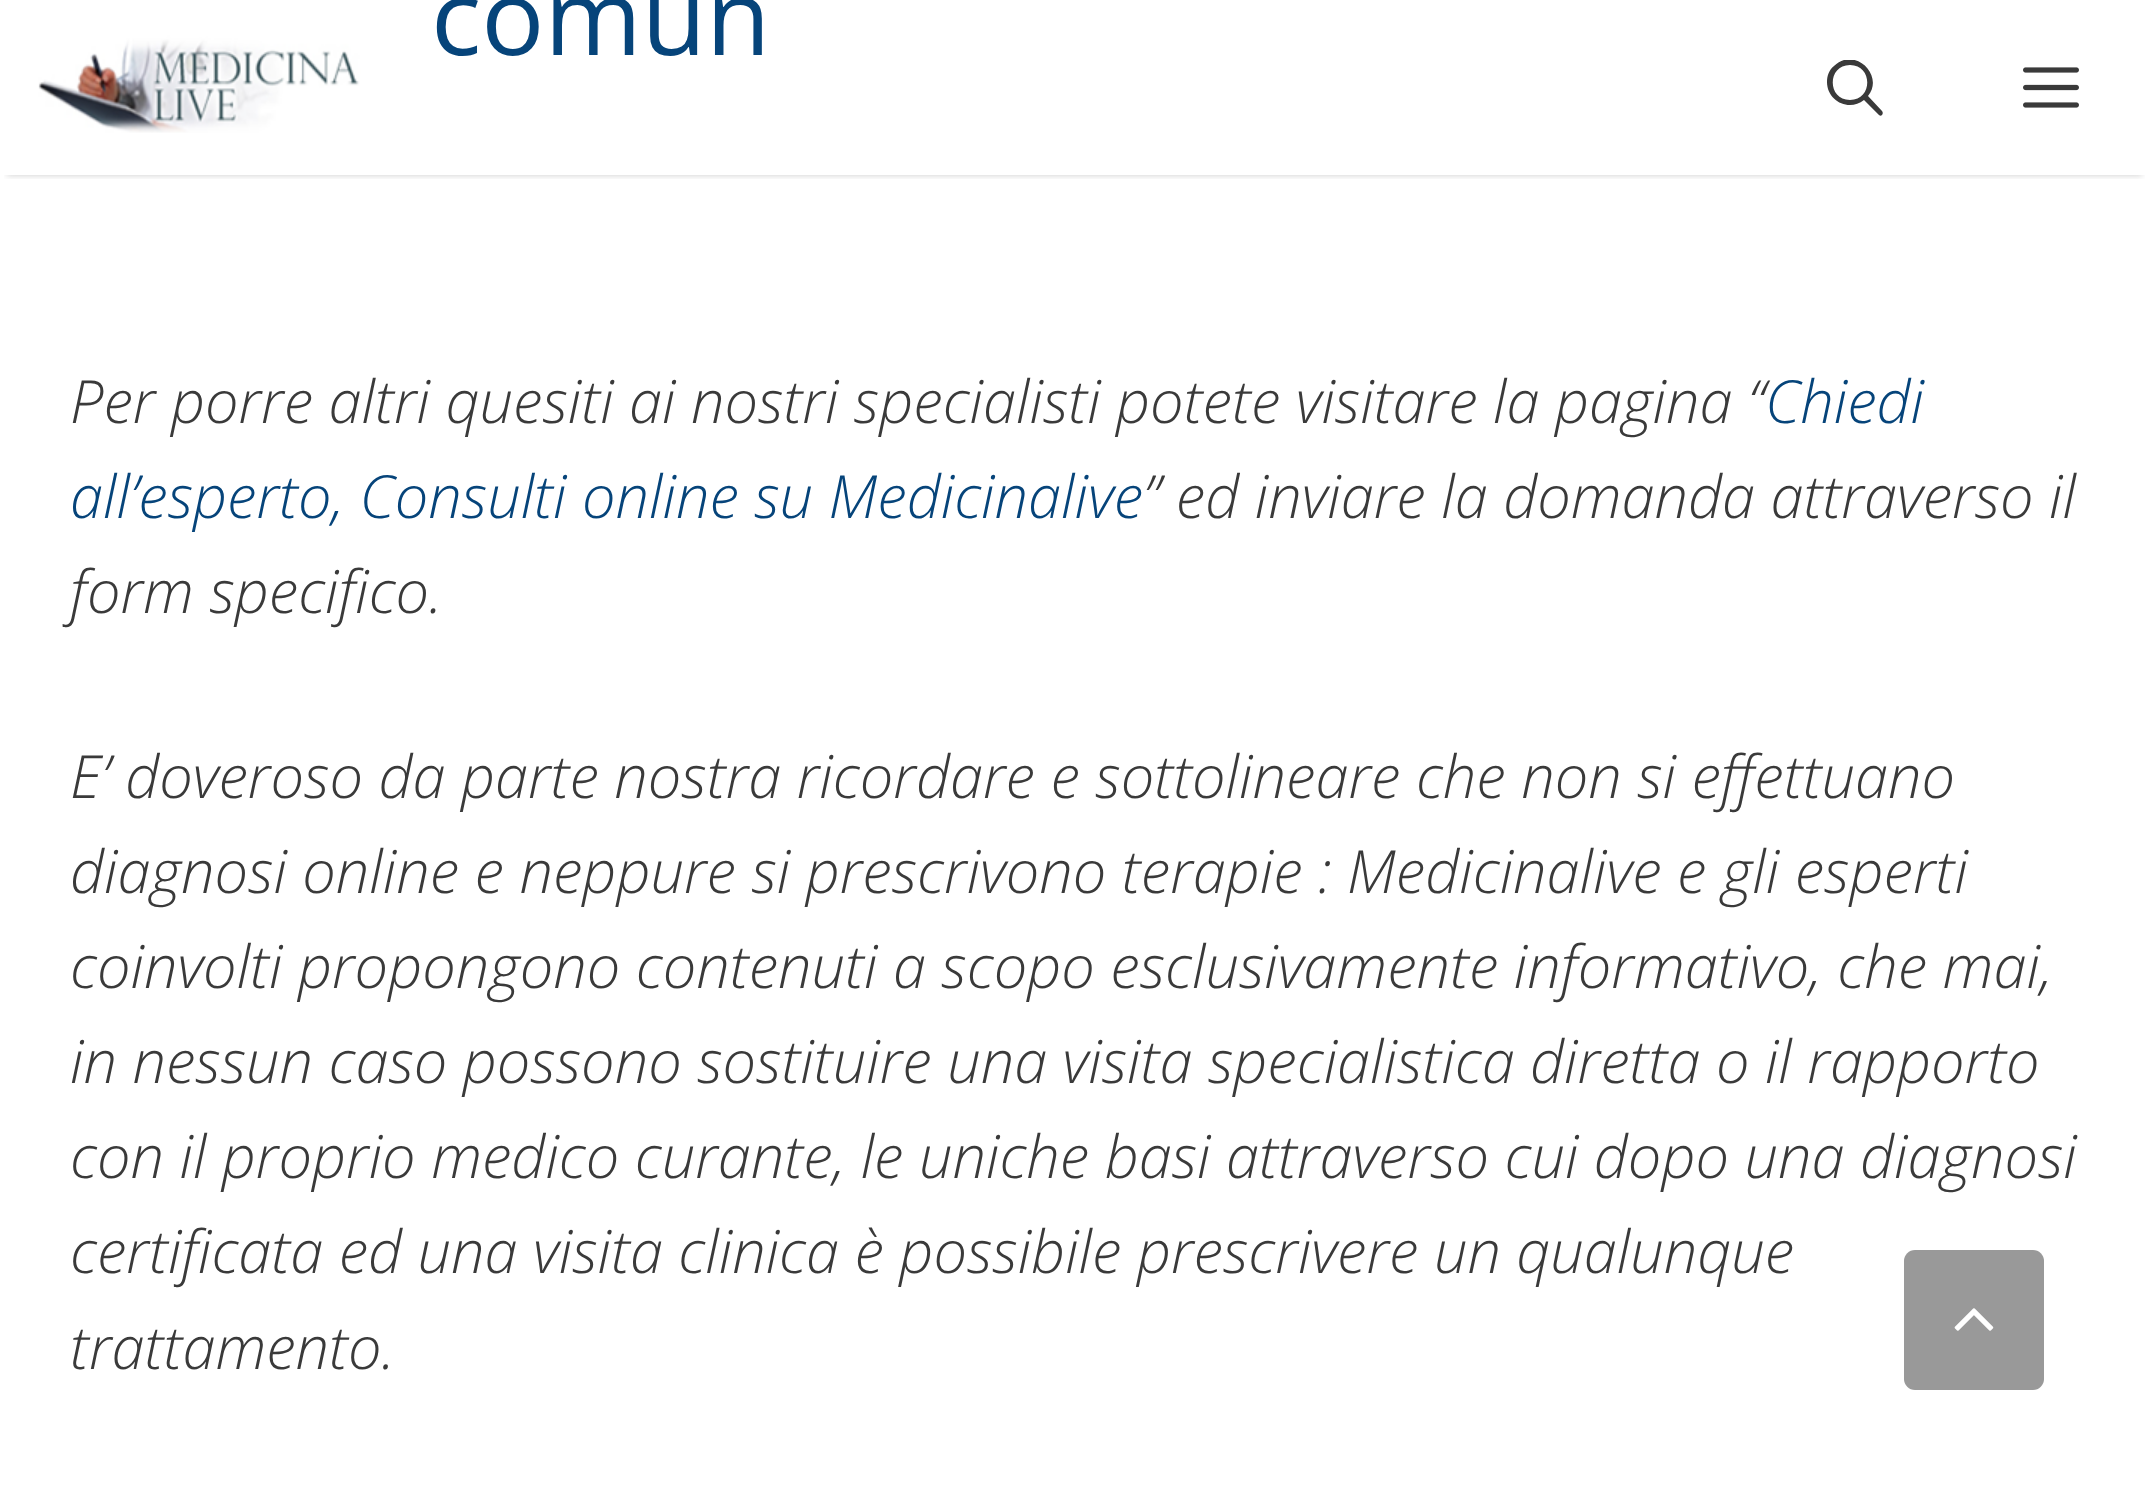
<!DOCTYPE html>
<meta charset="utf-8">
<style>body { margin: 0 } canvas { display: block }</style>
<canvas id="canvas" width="2147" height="1492"></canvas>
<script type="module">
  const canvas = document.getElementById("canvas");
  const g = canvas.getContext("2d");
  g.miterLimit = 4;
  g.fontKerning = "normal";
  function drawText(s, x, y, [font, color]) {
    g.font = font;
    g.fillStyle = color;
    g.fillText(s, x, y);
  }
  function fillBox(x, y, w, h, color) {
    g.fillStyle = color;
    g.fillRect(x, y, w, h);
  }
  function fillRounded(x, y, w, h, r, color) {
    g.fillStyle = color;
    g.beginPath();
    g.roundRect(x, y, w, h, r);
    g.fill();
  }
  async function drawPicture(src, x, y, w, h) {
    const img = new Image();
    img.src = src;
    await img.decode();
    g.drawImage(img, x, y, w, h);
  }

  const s1 = ["105px Open Sans", "#06447A"];
  const s2 = ["italic 300 59.5px Open Sans", "#3A3A3A"];
  const s3 = ["italic 300 59.5px Open Sans", "#06447A"];

  fillBox(0, 0, 2147, 1492, "#FFFFFF");
  drawText("comun", 431, 55, s1);
  drawText("Per porre altri quesiti ai nostri specialisti potete visitare la pagina “", 70, 423, s2);
  drawText("Chiedi", 1765, 423, s3);
  drawText("all’esperto, Consulti online su Medicinalive", 70, 518, s3);
  drawText("” ed inviare la domanda attraverso il", 1143, 518, s2);
  drawText("form specifico.", 70, 613, s2);
  drawText("E’ doveroso da parte nostra ricordare e sottolineare che non si effettuano", 70, 798, s2);
  drawText("diagnosi online e neppure si prescrivono terapie : Medicinalive e gli esperti", 70, 893, s2);
  drawText("coinvolti propongono contenuti a scopo esclusivamente informativo, che mai,", 70, 988, s2);
  drawText("in nessun caso possono sostituire una visita specialistica diretta o il rapporto", 70, 1083, s2);
  drawText("con il proprio medico curante, le uniche basi attraverso cui dopo una diagnosi", 70, 1178, s2);
  drawText("certificata ed una visita clinica è possibile prescrivere un qualunque", 70, 1273, s2);
  drawText("trattamento.", 70, 1369, s2);
  g.save();
  g.beginPath();
  g.rect(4, 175, 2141, 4);
  g.clip();
  g.fillStyle = "rgba(0, 0, 0, 0.2)";
  g.filter = "blur(3.5px)";
  g.beginPath();
  g.rect(7, 14, 2135, 161);
  g.fill();
  g.filter = "none";
  g.restore();
  await drawPicture("pic1.png", 38, 34, 323, 99);
  g.save();
  g.beginPath();
  g.rect(1827, 60, 56, 56);
  g.clip();
  g.beginPath();
  g.moveTo(1850, 65);
  g.bezierCurveTo(1827, 65, 1827, 100, 1850, 100);
  g.bezierCurveTo(1873, 100, 1873, 65, 1850, 65);
  g.closePath();
  g.moveTo(1827, 82);
  g.bezierCurveTo(1827, 76, 1829, 70, 1834, 66);
  g.bezierCurveTo(1854, 46, 1885, 75, 1868, 96);
  g.lineTo(1882, 111);
  g.bezierCurveTo(1883, 112, 1883, 114, 1882, 115);
  g.bezierCurveTo(1881, 116, 1880, 116, 1879, 115);
  g.lineTo(1864, 100);
  g.bezierCurveTo(1849, 112, 1827, 101, 1827, 82);
  g.closePath();
  g.fill("evenodd");
  g.restore();
  await drawPicture("pic2.png", 2023, 67, 56, 41);
  fillRounded(1904, 1250, 140, 140, 11, "#999999");
  await drawPicture("pic3.png", 1954, 1308, 40, 23);
</script>
